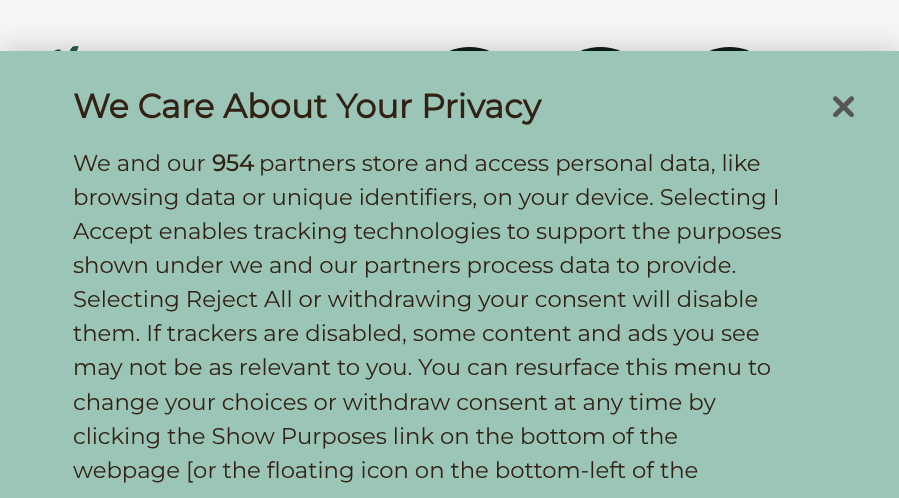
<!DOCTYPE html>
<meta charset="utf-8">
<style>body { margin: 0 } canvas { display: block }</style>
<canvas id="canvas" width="899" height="498"></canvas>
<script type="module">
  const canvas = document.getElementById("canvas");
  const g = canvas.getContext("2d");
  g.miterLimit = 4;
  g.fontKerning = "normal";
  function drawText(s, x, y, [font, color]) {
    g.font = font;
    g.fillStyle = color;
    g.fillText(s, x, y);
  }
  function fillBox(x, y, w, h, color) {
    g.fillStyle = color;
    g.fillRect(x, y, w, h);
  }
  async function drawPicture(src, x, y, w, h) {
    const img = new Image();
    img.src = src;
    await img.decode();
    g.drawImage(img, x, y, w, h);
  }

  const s1 = ["bold 33.6px Montserrat", "#312214"];
  const s2 = ["22.75px Montserrat", "#312214"];
  const s3 = ["bold 22.75px Montserrat", "#312214"];

  fillBox(0, 0, 899, 498, "#F6F6F6");
  await drawPicture("pic1.png", 54, 46, 25, 5);
  g.fillStyle = "#0A1E14";
  g.beginPath();
  g.arc(469.5, 99.5, 52.5, 0, Math.PI * 2);
  g.fill();
  g.beginPath();
  g.arc(600.5, 99.5, 52.5, 0, Math.PI * 2);
  g.fill();
  g.beginPath();
  g.arc(729.5, 99.5, 52.5, 0, Math.PI * 2);
  g.fill();
  g.fillStyle = "rgba(0, 0, 0, 0.2)";
  g.filter = "blur(16px)";
  g.beginPath();
  g.rect(0, 51, 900, 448);
  g.fill();
  g.filter = "none";
  fillBox(0, 51, 899, 447, "#9BC5B7");
  drawText("We Care About Your Privacy", 73, 118, s1);
  drawText("We and our", 73, 171, s2);
  drawText("954", 212, 171, s3);
  drawText("partners store and access personal data, like", 259, 171, s2);
  drawText("browsing data or unique identifiers, on your device. Selecting I", 73, 205, s2);
  drawText("Accept enables tracking technologies to support the purposes", 73, 239, s2);
  drawText("shown under we and our partners process data to provide.", 73, 273, s2);
  drawText("Selecting Reject All or withdrawing your consent will disable", 73, 307, s2);
  drawText("them. If trackers are disabled, some content and ads you see", 73, 341, s2);
  drawText("may not be as relevant to you. You can resurface this menu to", 73, 375, s2);
  drawText("change your choices or withdraw consent at any time by", 73, 410, s2);
  drawText("clicking the Show Purposes link on the bottom of the", 73, 444, s2);
  drawText("webpage [or the floating icon on the bottom-left of the", 73, 478, s2);
  await drawPicture("pic2.png", 833, 96, 21, 21);
</script>
